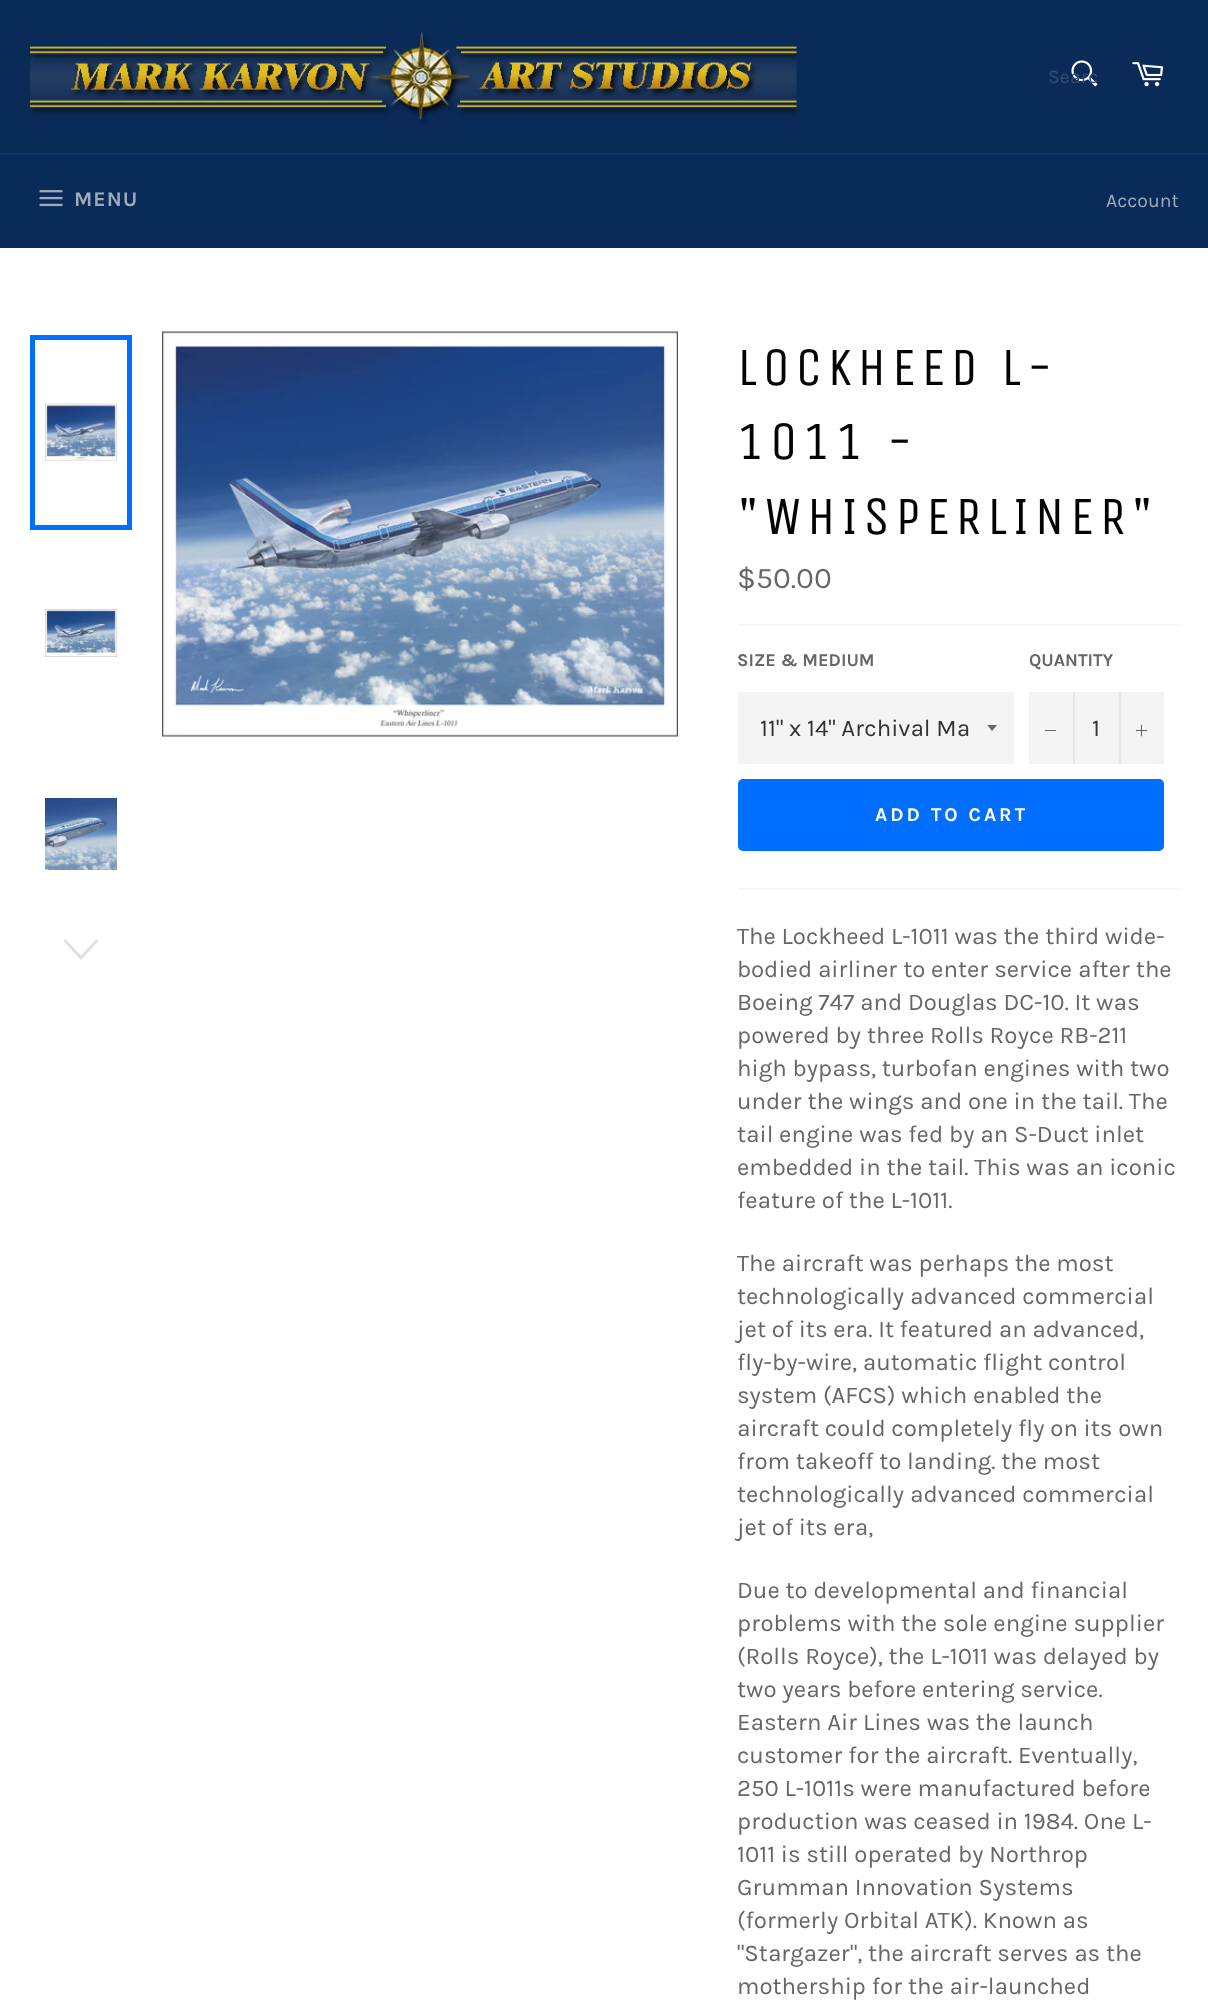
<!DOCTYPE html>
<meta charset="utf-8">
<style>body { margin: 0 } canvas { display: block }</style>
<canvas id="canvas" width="1208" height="2008"></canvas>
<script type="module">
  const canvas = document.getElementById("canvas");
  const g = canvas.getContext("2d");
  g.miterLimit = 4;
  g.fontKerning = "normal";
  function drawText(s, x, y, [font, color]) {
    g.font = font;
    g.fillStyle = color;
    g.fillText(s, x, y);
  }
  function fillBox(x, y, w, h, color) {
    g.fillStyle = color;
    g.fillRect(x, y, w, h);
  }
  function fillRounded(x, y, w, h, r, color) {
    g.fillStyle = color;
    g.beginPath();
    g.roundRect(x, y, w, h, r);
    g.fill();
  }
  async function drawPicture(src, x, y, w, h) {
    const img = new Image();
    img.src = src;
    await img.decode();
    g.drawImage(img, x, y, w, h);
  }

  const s1 = ["19.5px Karla", "#324E73"];
  const s2 = ["bold 21px Karla", "#9DAABC"];
  const s3 = ["19.5px Karla", "#9DAABC"];
  const s4 = ["54px Unica One", "#030303"];
  const s5 = ["30px Karla", "#666666"];
  const s6 = ["bold 18px Karla", "#666666"];
  const s7 = ["24px Karla", "#333333"];
  const s8 = ["bold 19.5px Karla", "#FFFFFF"];
  const s9 = ["24px Karla", "#666666"];

  fillBox(0, 0, 1208, 2008, "#0A2B58");
  await drawPicture("pic1.png", 30, 32, 767, 91);
  await drawPicture("pic2.png", 1071, 60, 27, 27);
  g.save();
  g.beginPath();
  g.rect(1049, 65, 48, 22);
  g.clip();
  drawText("Searc", 1048, 83, s1);
  g.restore();
  await drawPicture("pic3.png", 1132, 62, 31, 25);
  fillBox(0, 153, 1208, 2, "#0D366F");
  await drawPicture("pic4.png", 39, 190, 24, 17);
  g.letterSpacing = "1px";
  drawText("MENU", 74, 206, s2);
  g.letterSpacing = "0px";
  drawText("Account", 1106, 207, s3);
  fillBox(0, 248, 1208, 1760, "#FFFFFF");
  await drawPicture("pic5.png", 45, 403, 72, 58);
  g.strokeStyle = "#006EFF";
  g.lineWidth = 5;
  g.strokeRect(32.5, 337.5, 97, 190);
  await drawPicture("pic6.png", 45, 608, 72, 49);
  await drawPicture("pic7.png", 45, 798, 72, 72);
  g.fillStyle = "#E0E0E0";
  g.beginPath();
  g.moveTo(96.5, 939);
  g.lineTo(98.5, 941);
  g.lineTo(81, 960);
  g.lineTo(63.5, 941);
  g.lineTo(65.5, 939);
  g.lineTo(81, 955.5);
  g.closePath();
  g.fill();
  await drawPicture("pic8.png", 162, 331, 516, 406);
  g.letterSpacing = "5.4px";
  drawText("LOCKHEED L-", 737, 385, s4);
  drawText("1011 -", 737, 459, s4);
  drawText("\"WHISPERLINER\"", 737, 534, s4);
  g.letterSpacing = "0px";
  drawText("$50.00", 737, 588, s5);
  fillBox(738, 624, 441, 2, "#F7F7F7");
  drawText("SIZE & MEDIUM", 737, 666, s6);
  fillBox(738, 692, 276, 72, "#F4F4F4");
  g.save();
  g.beginPath();
  g.rect(987, 725, 12, 7);
  g.clip();
  g.fillStyle = "#666666";
  g.beginPath();
  g.moveTo(987, 724.5);
  g.lineTo(992, 731);
  g.lineTo(997.5, 724.5);
  g.closePath();
  g.fill();
  g.restore();
  drawText("11\" x 14\" Archival Ma", 760, 736, s7);
  drawText("QUANTITY", 1029, 666, s6);
  fillBox(1029, 692, 135, 72, "#F4F4F4");
  fillBox(1073, 692, 2, 72, "#E7E7E7");
  fillBox(1045, 730, 11, 1, "#666666");
  drawText("1", 1092, 736, s7);
  fillBox(1119, 692, 2, 72, "#E7E7E7");
  await drawPicture("pic9.png", 1136, 725, 12, 12);
  fillRounded(738, 779, 426, 72, 5, "#006EFF");
  g.letterSpacing = "3px";
  drawText("ADD TO CART", 875, 821, s8);
  fillBox(738, 888, 441, 2, "#F7F7F7");
  g.letterSpacing = "0px";
  drawText("The Lockheed L-1011 was the third wide-", 737, 944, s9);
  drawText("bodied airliner to enter service after the", 737, 977, s9);
  drawText("Boeing 747 and Douglas DC-10. It was", 737, 1010, s9);
  drawText("powered by three Rolls Royce RB-211", 737, 1043, s9);
  drawText("high bypass, turbofan engines with two", 737, 1076, s9);
  drawText("under the wings and one in the tail. The", 737, 1109, s9);
  drawText("tail engine was fed by an S-Duct inlet", 737, 1142, s9);
  drawText("embedded in the tail. This was an iconic", 737, 1175, s9);
  drawText("feature of the L-1011.", 737, 1208, s9);
  drawText("The aircraft was perhaps the most", 737, 1271, s9);
  drawText("technologically advanced commercial", 737, 1304, s9);
  drawText("jet of its era. It featured an advanced,", 737, 1337, s9);
  drawText("fly-by-wire, automatic flight control", 737, 1370, s9);
  drawText("system (AFCS) which enabled the", 737, 1403, s9);
  drawText("aircraft could completely fly on its own", 737, 1436, s9);
  drawText("from takeoff to landing. the most", 737, 1469, s9);
  drawText("technologically advanced commercial", 737, 1502, s9);
  drawText("jet of its era,", 737, 1535, s9);
  drawText("Due to developmental and financial", 737, 1598, s9);
  drawText("problems with the sole engine supplier", 737, 1631, s9);
  drawText("(Rolls Royce), the L-1011 was delayed by", 737, 1664, s9);
  drawText("two years before entering service.", 737, 1697, s9);
  drawText("Eastern Air Lines was the launch", 737, 1730, s9);
  drawText("customer for the aircraft. Eventually,", 737, 1763, s9);
  drawText("250 L-1011s were manufactured before", 737, 1796, s9);
  drawText("production was ceased in 1984. One L-", 737, 1829, s9);
  drawText("1011 is still operated by Northrop", 737, 1862, s9);
  drawText("Grumman Innovation Systems", 737, 1895, s9);
  drawText("(formerly Orbital ATK). Known as", 737, 1928, s9);
  drawText("\"Stargazer\", the aircraft serves as the", 737, 1961, s9);
  drawText("mothership for the air-launched", 737, 1994, s9);
</script>
